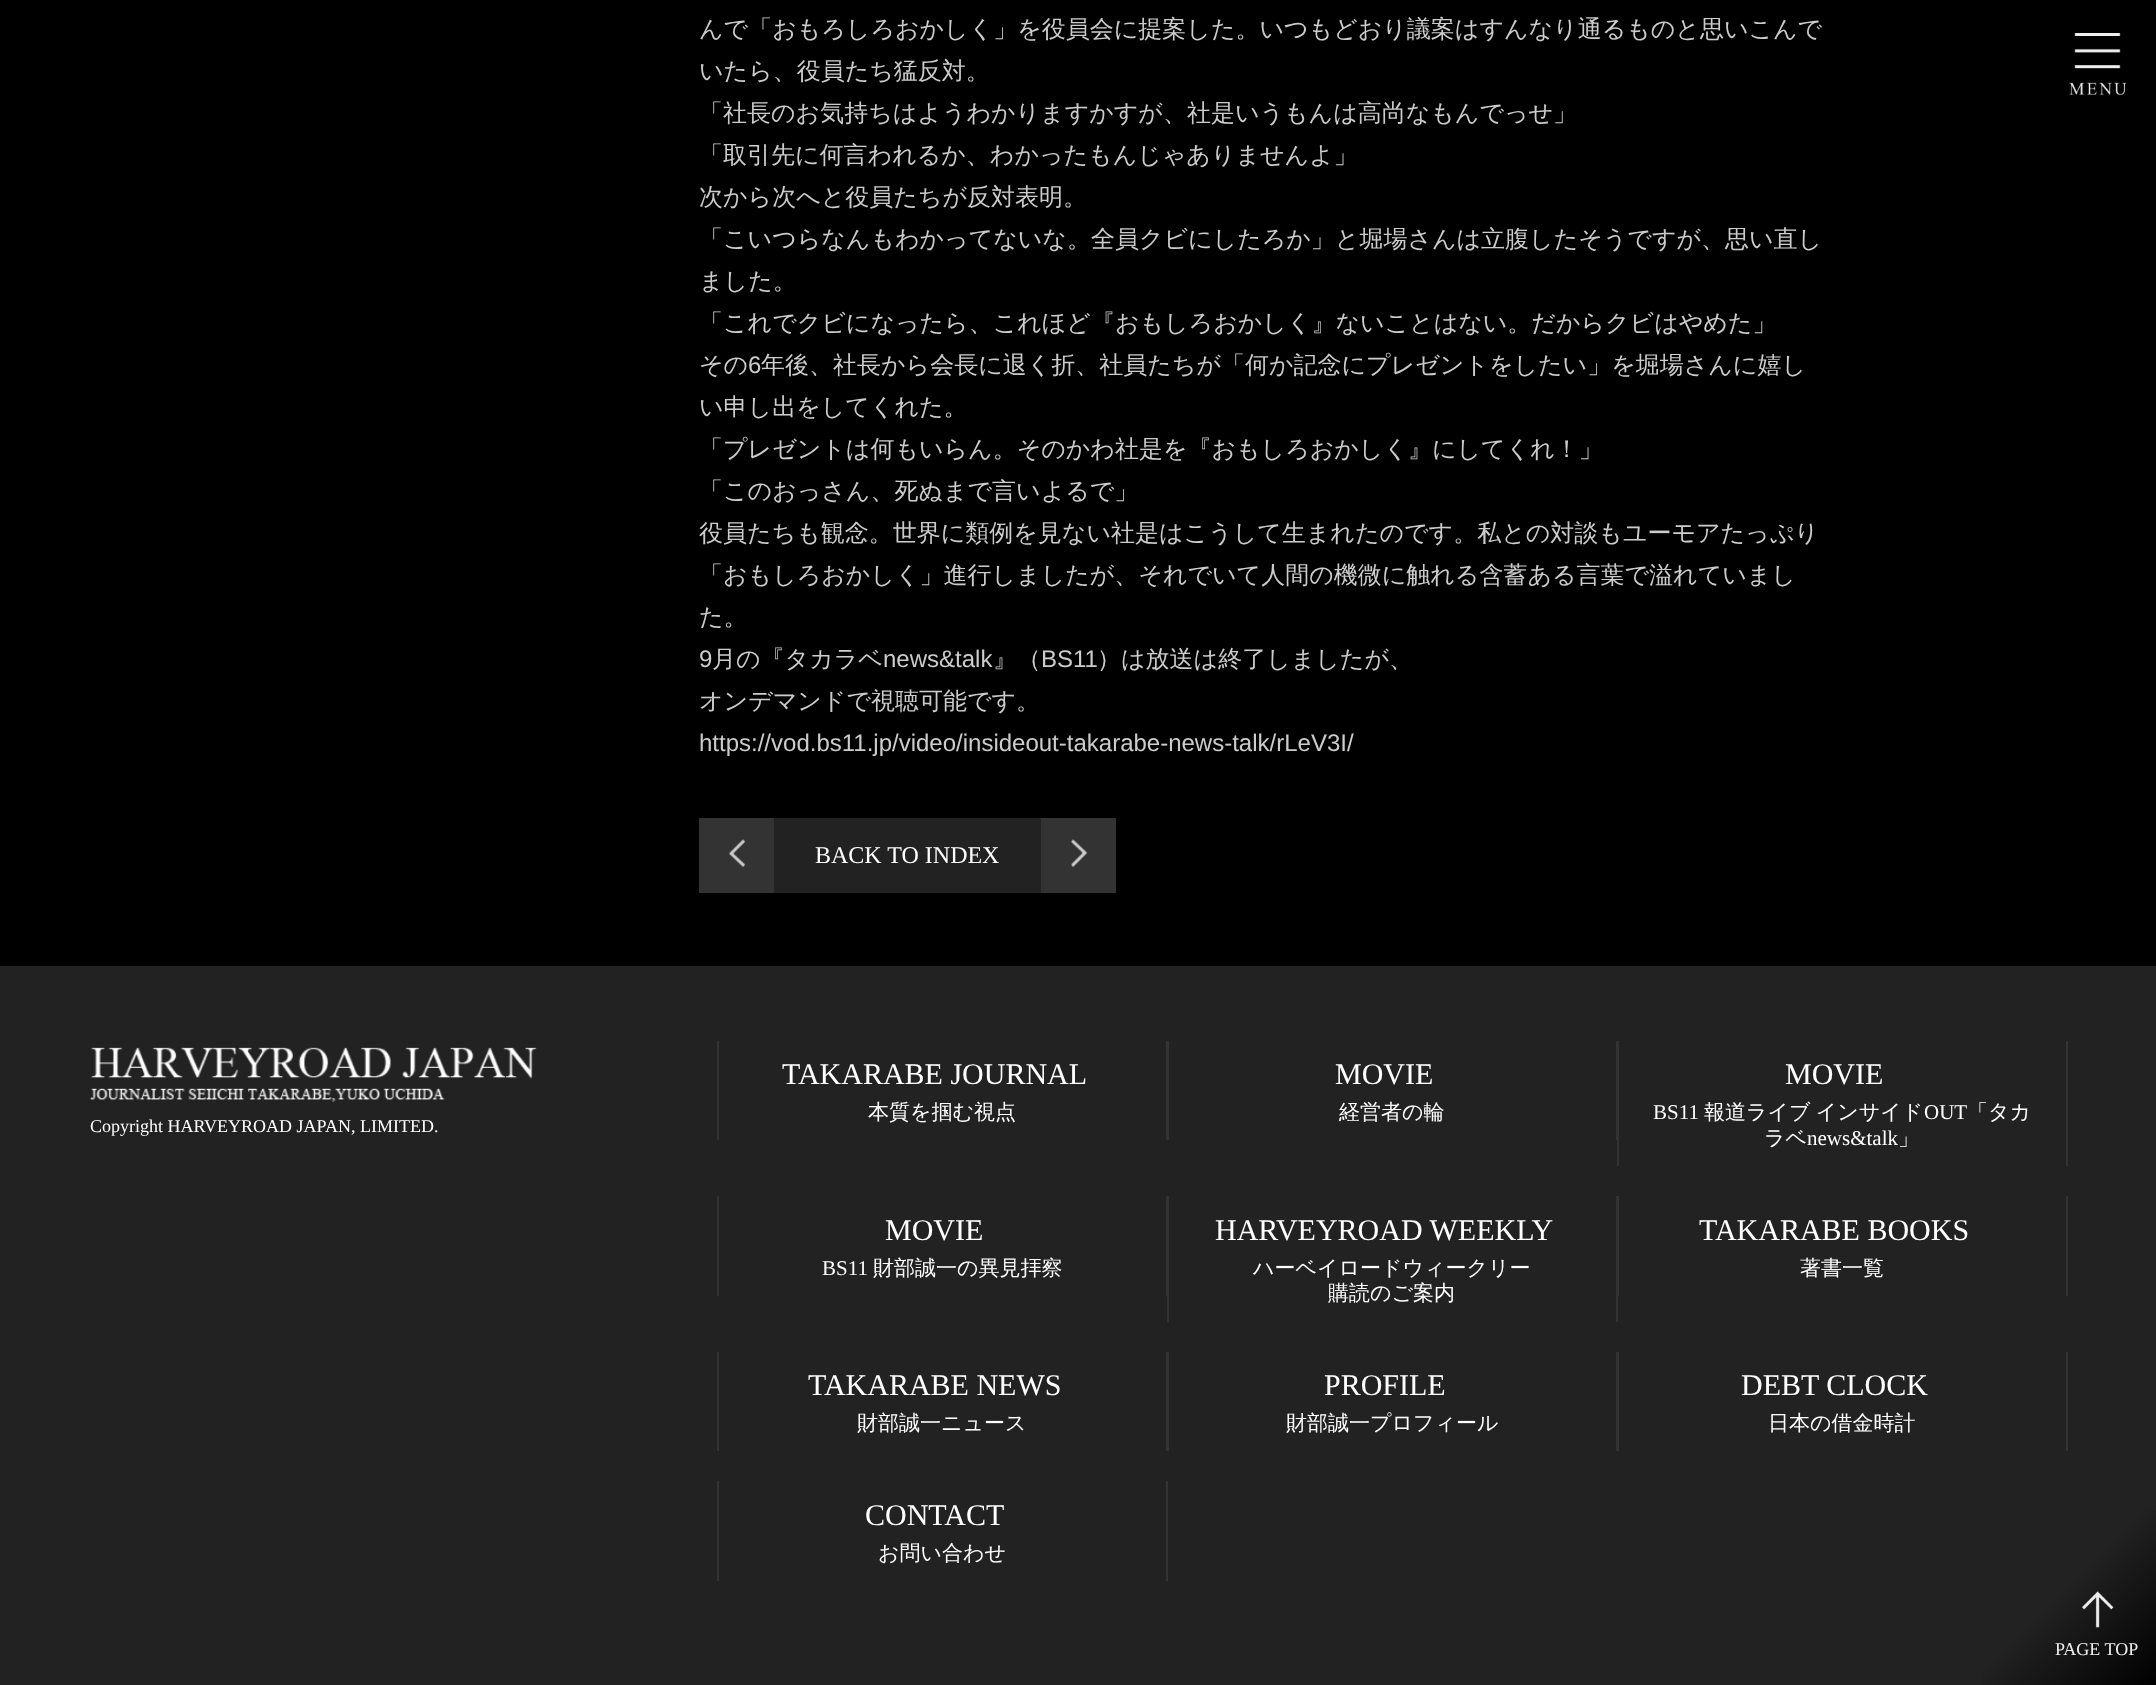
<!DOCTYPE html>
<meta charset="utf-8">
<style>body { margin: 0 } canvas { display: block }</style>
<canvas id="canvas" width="2156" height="1685"></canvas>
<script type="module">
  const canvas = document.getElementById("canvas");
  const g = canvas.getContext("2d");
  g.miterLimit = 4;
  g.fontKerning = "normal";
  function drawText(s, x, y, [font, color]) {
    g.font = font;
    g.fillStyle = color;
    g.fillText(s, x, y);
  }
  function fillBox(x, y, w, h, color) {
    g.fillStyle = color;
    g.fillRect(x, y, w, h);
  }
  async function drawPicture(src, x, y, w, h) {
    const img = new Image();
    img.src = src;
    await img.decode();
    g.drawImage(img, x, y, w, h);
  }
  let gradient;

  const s1 = ["500 24px WenQuanYi Zen Hei", "#CCCCCC"];
  const s2 = ["24px Liberation Sans", "#CCCCCC"];
  const s3 = ["24px Liberation Serif", "#FFFFFF"];
  const s4 = ["18px Liberation Serif", "#FFFFFF"];
  const s5 = ["30px Liberation Serif", "#FFFFFF"];
  const s6 = ["500 21px WenQuanYi Zen Hei", "#FFFFFF"];
  const s7 = ["21px Liberation Serif", "#FFFFFF"];
  const s8 = ["18px Liberation Serif", "#EEEEEE"];

  fillBox(0, 0, 2156, 1685, "#000000");
  drawText("んで「おもろしろおかしく」を役員会に提案した。いつもどおり議案はすんなり通るものと思いこんで", 699, 37, s1);
  drawText("いたら、役員たち猛反対。", 699, 79, s1);
  drawText("「社長のお気持ちはようわかりますかすが、社是いうもんは高尚なもんでっせ」", 699, 121, s1);
  drawText("「取引先に何言われるか、わかったもんじゃありませんよ」", 699, 163, s1);
  drawText("次から次へと役員たちが反対表明。", 699, 205, s1);
  drawText("「こいつらなんもわかってないな。全員クビにしたろか」と堀場さんは立腹したそうですが、思い直し", 699, 247, s1);
  drawText("ました。", 699, 289, s1);
  drawText("「これでクビになったら、これほど『おもしろおかしく』ないことはない。だからクビはやめた」", 699, 331, s1);
  drawText("その", 699, 373, s1);
  drawText("6", 748, 373, s2);
  drawText("年後、社長から会長に退く折、社員たちが「何か記念にプレゼントをしたい」を堀場さんに嬉し", 761, 373, s1);
  drawText("い申し出をしてくれた。", 699, 415, s1);
  drawText("「プレゼントは何もいらん。そのかわ社是を『おもしろおかしく』にしてくれ！」", 699, 457, s1);
  drawText("「このおっさん、死ぬまで言いよるで」", 699, 499, s1);
  drawText("役員たちも観念。世界に類例を見ない社是はこうして生まれたのです。私との対談もユーモアたっぷり", 699, 541, s1);
  drawText("「おもしろおかしく」進行しましたが、それでいて人間の機微に触れる含蓄ある言葉で溢れていまし", 699, 583, s1);
  drawText("た。", 699, 625, s1);
  drawText("9", 699, 667, s2);
  drawText("月の『タカラベ", 712, 667, s1);
  drawText("news&talk", 883, 667, s2);
  drawText("』（", 993, 667, s1);
  drawText("BS11", 1041, 667, s2);
  drawText("）は放送は終了しましたが、", 1097, 667, s1);
  drawText("オンデマンドで視聴可能です。", 699, 709, s1);
  drawText("https://vod.bs11.jp/video/insideout-takarabe-news-talk/rLeV3I/", 699, 751, s2);
  fillBox(699, 818, 75, 75, "#333333");
  await drawPicture("pic1.png", 729, 839, 17, 29);
  fillBox(774, 818, 267, 75, "#222222");
  drawText("BACK TO INDEX", 815, 863, s3);
  fillBox(1041, 818, 75, 75, "#333333");
  await drawPicture("pic2.png", 1071, 839, 17, 29);
  await drawPicture("pic3.png", 2069, 33, 58, 63);
  fillBox(0, 966, 2156, 719, "#222222");
  await drawPicture("pic4.png", 90, 1047, 447, 55);
  drawText("Copyright HARVEYROAD JAPAN, LIMITED.", 90, 1132, s4);
  fillBox(1166, 1041, 3, 99, "#333333");
  fillBox(717, 1041, 2, 99, "#333333");
  drawText("TAKARABE JOURNAL", 782, 1084, s5);
  drawText("本質を掴む視点", 868, 1119, s6);
  fillBox(1616, 1041, 1, 99, "#333333");
  drawText("MOVIE", 1335, 1084, s5);
  drawText("経営者の輪", 1339, 1119, s6);
  fillBox(2066, 1041, 2, 125, "#333333");
  fillBox(1617, 1041, 2, 125, "#333333");
  drawText("MOVIE", 1785, 1084, s5);
  drawText("BS11", 1653, 1119, s7);
  g.wordSpacing = "-1px";
  drawText("報道ライブ インサイド", 1704, 1119, s6);
  g.wordSpacing = "0px";
  drawText("OUT", 1924, 1119, s7);
  drawText("「タカ", 1967, 1119, s6);
  drawText("ラベ", 1764, 1145, s6);
  drawText("news&talk", 1807, 1145, s7);
  drawText("」", 1898, 1145, s6);
  fillBox(1166, 1196, 1, 100, "#333333");
  fillBox(717, 1196, 2, 100, "#333333");
  drawText("MOVIE", 885, 1240, s5);
  drawText("BS11", 822, 1275, s7);
  drawText("財部誠一の異見拝察", 873, 1275, s6);
  fillBox(1616, 1196, 2, 126, "#333333");
  fillBox(1167, 1196, 2, 126, "#333333");
  drawText("HARVEYROAD WEEKLY", 1215, 1240, s5);
  drawText("ハーベイロードウィークリー", 1253, 1275, s6);
  drawText("購読のご案内", 1328, 1300, s6);
  fillBox(2066, 1196, 2, 100, "#333333");
  fillBox(1618, 1196, 1, 100, "#333333");
  drawText("TAKARABE BOOKS", 1699, 1240, s5);
  drawText("著書一覧", 1800, 1275, s6);
  fillBox(1166, 1352, 3, 99, "#333333");
  fillBox(717, 1352, 2, 99, "#333333");
  drawText("TAKARABE NEWS", 808, 1395, s5);
  drawText("財部誠一ニュース", 857, 1430, s6);
  fillBox(1616, 1352, 3, 99, "#333333");
  drawText("PROFILE", 1324, 1395, s5);
  drawText("財部誠一プロフィール", 1286, 1430, s6);
  fillBox(2066, 1352, 2, 99, "#333333");
  drawText("DEBT CLOCK", 1741, 1395, s5);
  drawText("日本の借金時計", 1768, 1430, s6);
  fillBox(1166, 1481, 2, 100, "#333333");
  fillBox(717, 1481, 2, 100, "#333333");
  drawText("CONTACT", 865, 1525, s5);
  drawText("お問い合わせ", 878, 1560, s6);
  gradient = g.createLinearGradient(1917, 1446, 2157, 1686);
  gradient.addColorStop(0.6, "rgba(0, 0, 0, 0)");
  gradient.addColorStop(1, "#000000");
  g.fillStyle = gradient;
  g.fillRect(1981, 1510, 175, 175);
  await drawPicture("pic5.png", 2082, 1591, 32, 37);
  drawText("PAGE TOP", 2055, 1655, s8);
</script>
